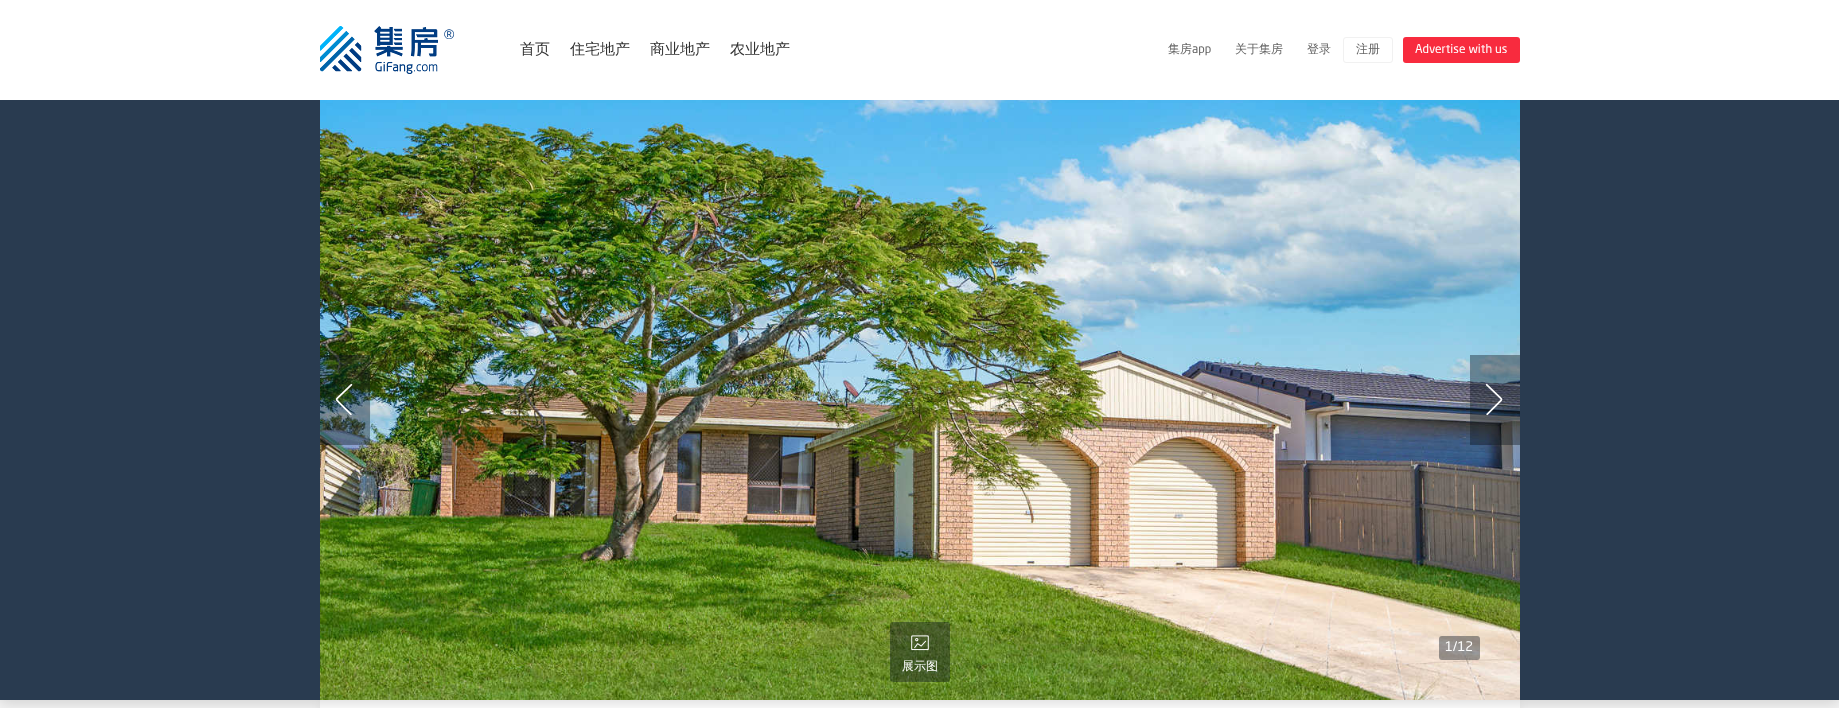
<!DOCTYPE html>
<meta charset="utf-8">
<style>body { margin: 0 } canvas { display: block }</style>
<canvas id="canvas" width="1839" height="708"></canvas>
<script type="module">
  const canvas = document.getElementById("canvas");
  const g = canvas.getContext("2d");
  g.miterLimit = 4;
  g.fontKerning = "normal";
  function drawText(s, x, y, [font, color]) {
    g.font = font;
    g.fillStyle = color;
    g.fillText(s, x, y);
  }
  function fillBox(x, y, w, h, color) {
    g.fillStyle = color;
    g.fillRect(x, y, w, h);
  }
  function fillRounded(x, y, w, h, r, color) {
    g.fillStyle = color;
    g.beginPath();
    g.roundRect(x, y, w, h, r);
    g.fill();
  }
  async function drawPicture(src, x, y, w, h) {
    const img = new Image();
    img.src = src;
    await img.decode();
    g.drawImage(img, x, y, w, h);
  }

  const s1 = ["14px Liberation Sans", "#003C82"];
  const s2 = ["500 15px WenQuanYi Zen Hei", "#333333"];
  const s3 = ["500 12px WenQuanYi Zen Hei", "#666666"];
  const s4 = ["12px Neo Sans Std", "#666666"];
  const s5 = ["12px Neo Sans Std", "#FFFFFF"];
  const s6 = ["13px Neo Sans Std", "#FFFFFF"];
  const s7 = ["500 12px WenQuanYi Zen Hei", "#FFFFFF"];

  fillBox(0, 0, 1839, 708, "#F4F4F4");
  g.fillStyle = "rgba(0, 0, 0, 0.05)";
  g.filter = "blur(5px)";
  g.beginPath();
  g.rect(320, 701, 1200, 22);
  g.fill();
  g.filter = "none";
  fillBox(320, 700, 1200, 8, "#FFFFFF");
  g.fillStyle = "rgba(0, 0, 0, 0.15)";
  g.filter = "blur(7.5px)";
  g.beginPath();
  g.rect(0, 103, 1839, 600);
  g.fill();
  g.filter = "none";
  fillBox(0, 0, 1839, 100, "#FFFFFF");
  await drawPicture("pic1.png", 320, 26, 118, 48);
  drawText("®", 444, 39, s1);
  drawText("首页", 520, 54, s2);
  drawText("住宅地产", 570, 54, s2);
  drawText("商业地产", 650, 54, s2);
  drawText("农业地产", 730, 54, s2);
  drawText("集房", 1168, 53, s3);
  drawText("app", 1192, 53, s4);
  drawText("关于集房", 1235, 53, s3);
  drawText("登录", 1307, 53, s3);
  g.beginPath();
  g.roundRect(1343.5, 37.5, 49, 25, 2.5);
  g.strokeStyle = "#F1F1F1";
  g.stroke();
  drawText("注册", 1356, 53, s3);
  fillRounded(1403, 37, 117, 26, 3, "#F82B3E");
  drawText("Advertise with us", 1415, 53, s5);
  fillBox(0, 100, 1839, 600, "#293B50");
  await drawPicture("pic2.png", 320, 100, 1200, 600);
  fillBox(320, 355, 50, 90, "rgba(10, 20, 30, 0.4)");
  await drawPicture("pic3.png", 335, 383, 18, 33);
  fillBox(1470, 355, 50, 90, "rgba(10, 20, 30, 0.4)");
  await drawPicture("pic4.png", 1485, 383, 18, 33);
  fillRounded(1439, 636, 41, 24, 3, "rgba(10, 20, 30, 0.4)");
  drawText("1/12", 1445, 651, s6);
  fillRounded(890, 622, 60, 60, 3, "rgba(10, 20, 30, 0.4)");
  await drawPicture("pic5.png", 911, 635, 18, 16);
  drawText("展示图", 902, 670, s7);
</script>
